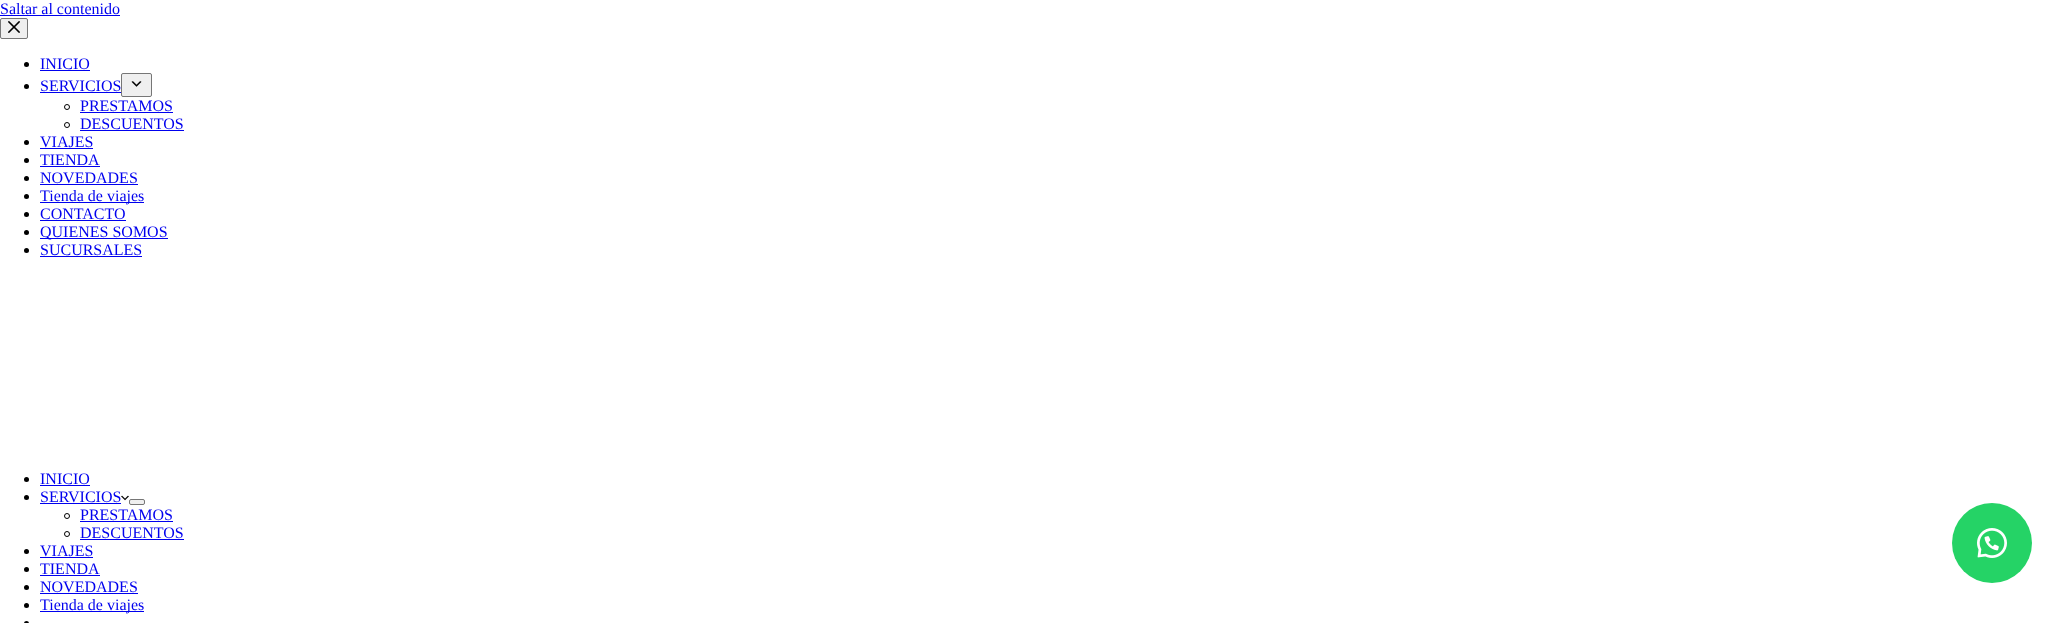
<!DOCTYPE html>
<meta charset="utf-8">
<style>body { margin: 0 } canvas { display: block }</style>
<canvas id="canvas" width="2072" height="623"></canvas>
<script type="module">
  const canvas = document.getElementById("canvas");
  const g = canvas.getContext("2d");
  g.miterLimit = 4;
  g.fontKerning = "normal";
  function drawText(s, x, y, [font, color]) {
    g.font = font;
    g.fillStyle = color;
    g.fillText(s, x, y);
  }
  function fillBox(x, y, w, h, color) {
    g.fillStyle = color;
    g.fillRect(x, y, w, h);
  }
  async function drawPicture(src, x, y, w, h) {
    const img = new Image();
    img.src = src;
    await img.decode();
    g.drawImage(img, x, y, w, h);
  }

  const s1 = ["16px Liberation Serif", "#0000EE"];

  fillBox(0, 0, 2072, 623, "#FFFFFF");
  drawText("Saltar al contenido", 0, 14, s1);
  fillBox(0, 15, 120, 1, "#0000EE");
  g.fillStyle = "#EFEFEF";
  g.beginPath();
  g.roundRect(0.5, 18.5, 27, 20, 1.5);
  g.fill();
  g.strokeStyle = "#767676";
  g.stroke();
  await drawPicture("pic1.png", 8, 21, 12, 12);
  g.fillStyle = "#000000";
  g.beginPath();
  g.arc(26.5, 64.5, 2.5, 0, Math.PI * 2);
  g.fill();
  drawText("INICIO", 40, 69, s1);
  fillBox(40, 70, 50, 1, "#0000EE");
  g.fillStyle = "#000000";
  g.beginPath();
  g.arc(26.5, 86.5, 2.5, 0, Math.PI * 2);
  g.fill();
  drawText("SERVICIOS", 40, 91, s1);
  fillBox(40, 92, 81, 1, "#0000EE");
  g.fillStyle = "#EFEFEF";
  g.beginPath();
  g.roundRect(121.5, 73.5, 30, 23, 1.5);
  g.fill();
  g.stroke();
  await drawPicture("pic2.png", 131, 81, 11, 6);
  g.beginPath();
  g.arc(67, 107, 2.5, 0, Math.PI * 2);
  g.strokeStyle = "#000000";
  g.stroke();
  drawText("PRESTAMOS", 80, 111, s1);
  fillBox(80, 112, 93, 1, "#0000EE");
  g.beginPath();
  g.arc(67, 125, 2.5, 0, Math.PI * 2);
  g.stroke();
  drawText("DESCUENTOS", 80, 129, s1);
  fillBox(80, 130, 104, 1, "#0000EE");
  g.fillStyle = "#000000";
  g.beginPath();
  g.arc(26.5, 142.5, 2.5, 0, Math.PI * 2);
  g.fill();
  drawText("VIAJES", 40, 147, s1);
  fillBox(40, 148, 53, 1, "#0000EE");
  g.fillStyle = "#000000";
  g.beginPath();
  g.arc(26.5, 160.5, 2.5, 0, Math.PI * 2);
  g.fill();
  drawText("TIENDA", 40, 165, s1);
  fillBox(40, 166, 60, 1, "#0000EE");
  g.fillStyle = "#000000";
  g.beginPath();
  g.arc(26.5, 178.5, 2.5, 0, Math.PI * 2);
  g.fill();
  drawText("NOVEDADES", 40, 183, s1);
  fillBox(40, 184, 98, 1, "#0000EE");
  g.fillStyle = "#000000";
  g.beginPath();
  g.arc(26.5, 196.5, 2.5, 0, Math.PI * 2);
  g.fill();
  fillBox(40, 202, 104, 1, "#0000EE");
  drawText("Tienda de viajes", 40, 201, s1);
  g.fillStyle = "#000000";
  g.beginPath();
  g.arc(26.5, 214.5, 2.5, 0, Math.PI * 2);
  g.fill();
  drawText("CONTACTO", 40, 219, s1);
  fillBox(40, 220, 86, 1, "#0000EE");
  g.fillStyle = "#000000";
  g.beginPath();
  g.arc(26.5, 232.5, 2.5, 0, Math.PI * 2);
  g.fill();
  fillBox(40, 238, 128, 1, "#0000EE");
  drawText("QUIENES SOMOS", 40, 237, s1);
  g.fillStyle = "#000000";
  g.beginPath();
  g.arc(26.5, 250.5, 2.5, 0, Math.PI * 2);
  g.fill();
  drawText("SUCURSALES", 40, 255, s1);
  fillBox(40, 256, 102, 1, "#0000EE");
  g.fillStyle = "#000000";
  g.beginPath();
  g.arc(26.5, 479.5, 2.5, 0, Math.PI * 2);
  g.fill();
  drawText("INICIO", 40, 484, s1);
  fillBox(40, 485, 50, 1, "#0000EE");
  g.fillStyle = "#000000";
  g.beginPath();
  g.arc(26.5, 497.5, 2.5, 0, Math.PI * 2);
  g.fill();
  drawText("SERVICIOS", 40, 502, s1);
  fillBox(40, 503, 81, 1, "#0000EE");
  await drawPicture("pic3.png", 121, 495, 8, 6);
  g.fillStyle = "#EFEFEF";
  g.beginPath();
  g.roundRect(129.5, 499.5, 15, 5, 1.5);
  g.fill();
  g.strokeStyle = "#767676";
  g.stroke();
  g.beginPath();
  g.arc(67, 516, 2.5, 0, Math.PI * 2);
  g.strokeStyle = "#000000";
  g.stroke();
  drawText("PRESTAMOS", 80, 520, s1);
  fillBox(80, 521, 93, 1, "#0000EE");
  g.beginPath();
  g.arc(67, 534, 2.5, 0, Math.PI * 2);
  g.stroke();
  drawText("DESCUENTOS", 80, 538, s1);
  fillBox(80, 539, 104, 1, "#0000EE");
  g.fillStyle = "#000000";
  g.beginPath();
  g.arc(26.5, 551.5, 2.5, 0, Math.PI * 2);
  g.fill();
  drawText("VIAJES", 40, 556, s1);
  fillBox(40, 557, 53, 1, "#0000EE");
  g.fillStyle = "#000000";
  g.beginPath();
  g.arc(26.5, 569.5, 2.5, 0, Math.PI * 2);
  g.fill();
  drawText("TIENDA", 40, 574, s1);
  fillBox(40, 575, 60, 1, "#0000EE");
  g.fillStyle = "#000000";
  g.beginPath();
  g.arc(26.5, 587.5, 2.5, 0, Math.PI * 2);
  g.fill();
  drawText("NOVEDADES", 40, 592, s1);
  fillBox(40, 593, 98, 1, "#0000EE");
  g.fillStyle = "#000000";
  g.beginPath();
  g.arc(26.5, 605.5, 2.5, 0, Math.PI * 2);
  g.fill();
  fillBox(40, 611, 104, 1, "#0000EE");
  drawText("Tienda de viajes", 40, 610, s1);
  g.fillStyle = "#000000";
  g.beginPath();
  g.arc(26.5, 623.5, 2.5, 0, Math.PI * 2);
  g.fill();
  g.fillStyle = "#25D366";
  g.beginPath();
  g.arc(1992, 543, 40, 0, Math.PI * 2);
  g.fill();
  await drawPicture("pic4.png", 1977, 528, 30, 30);
</script>
